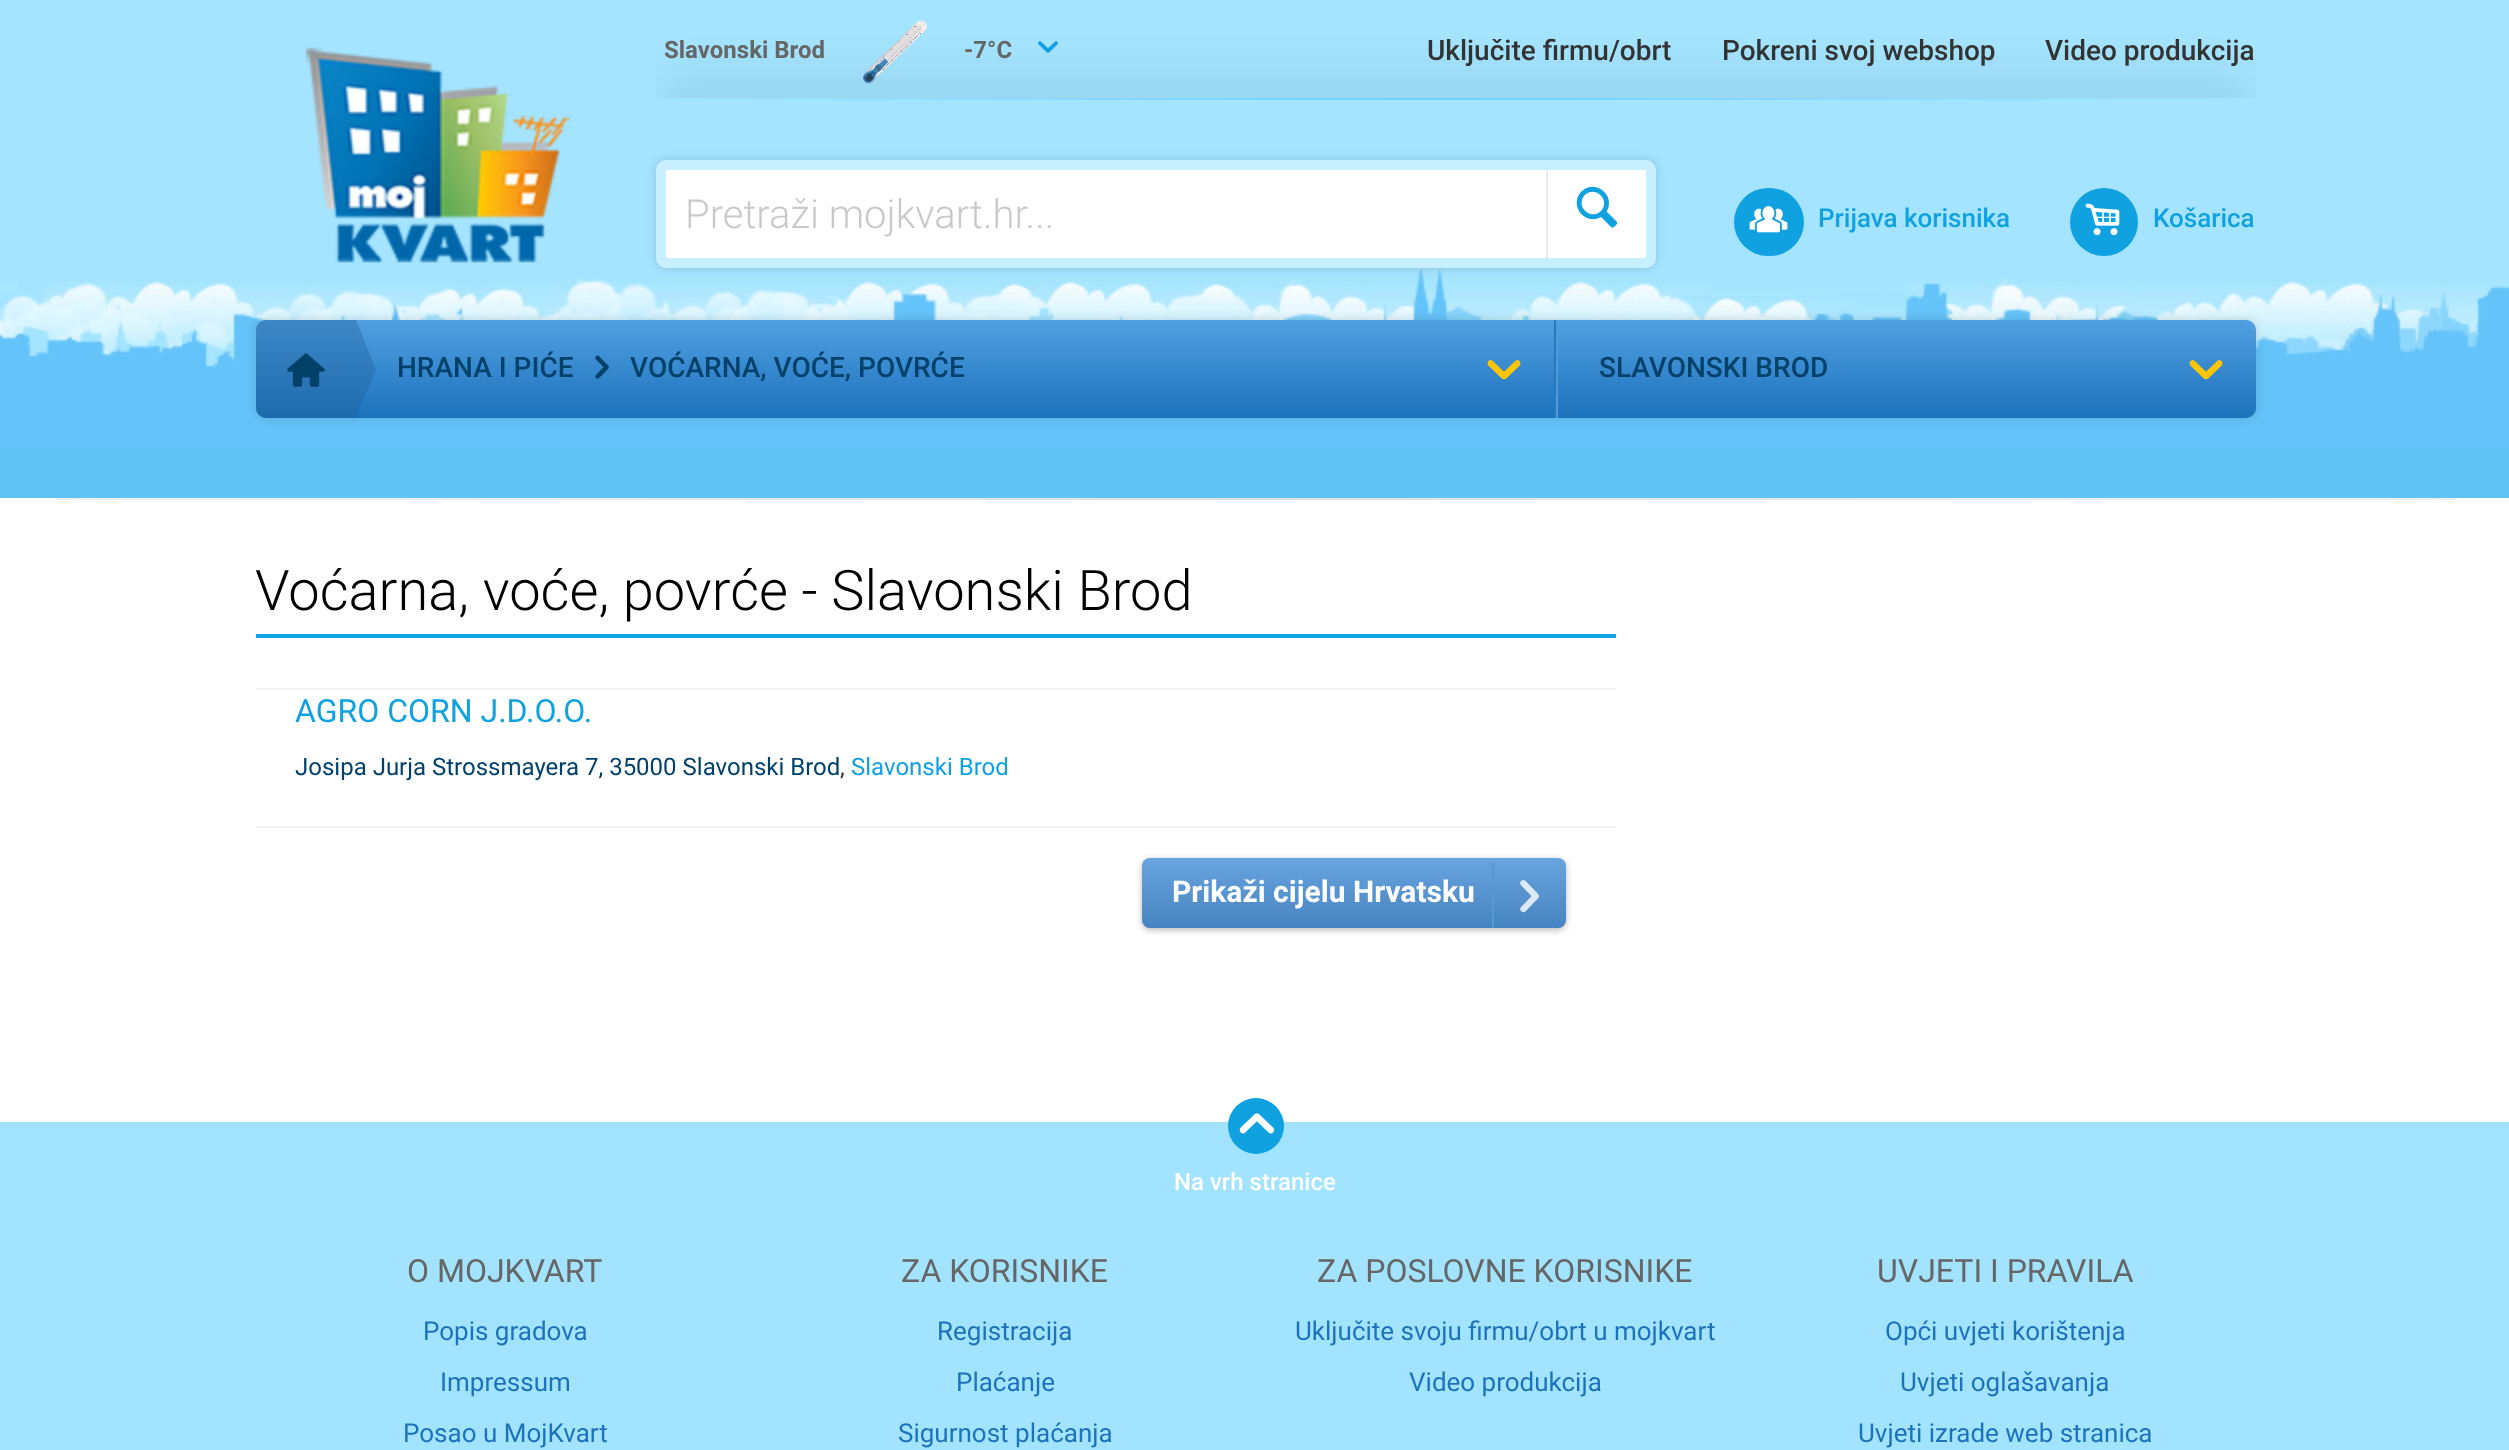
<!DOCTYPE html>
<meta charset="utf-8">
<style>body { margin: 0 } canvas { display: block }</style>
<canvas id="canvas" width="2509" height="1450"></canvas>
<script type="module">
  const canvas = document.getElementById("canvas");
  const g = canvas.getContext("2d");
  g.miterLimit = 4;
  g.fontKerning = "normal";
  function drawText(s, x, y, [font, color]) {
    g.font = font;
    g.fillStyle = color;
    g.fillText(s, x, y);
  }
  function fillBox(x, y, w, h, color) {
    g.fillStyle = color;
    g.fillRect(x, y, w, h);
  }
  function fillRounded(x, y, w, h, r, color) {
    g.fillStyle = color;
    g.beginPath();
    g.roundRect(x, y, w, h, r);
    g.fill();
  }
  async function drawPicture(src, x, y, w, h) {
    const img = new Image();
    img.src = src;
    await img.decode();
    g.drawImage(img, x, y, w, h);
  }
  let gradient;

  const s1 = ["bold 24px Roboto", "#666666"];
  const s2 = ["500 28px Roboto", "#333333"];
  const s3 = ["300 40px Roboto", "#C9C9C9"];
  const s4 = ["39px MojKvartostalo", "#FFFFFF"];
  const s5 = ["500 26px Roboto", "#10A1E1"];
  const s6 = ["500 28px Roboto", "#02416A"];
  const s7 = ["300 56px Roboto", "#000000"];
  const s8 = ["32px Roboto", "#10A1E1"];
  const s9 = ["24px Roboto", "#02416A"];
  const s10 = ["24px Roboto", "#333333"];
  const s11 = ["24px Roboto", "#10A1E1"];
  const s12 = ["bold 30px Roboto", "#FFFFFF"];
  const s13 = ["500 24px Roboto", "#FFFFFF"];
  const s14 = ["32px Roboto", "#666666"];
  const s15 = ["26px Roboto", "#1D73BB"];

  fillBox(0, 0, 2509, 1450, "#FFFFFF");
  fillBox(0, 0, 2509, 269, "#A4E4FF");
  await drawPicture("pic1.png", 0, 269, 2509, 229);
  await drawPicture("pic2.png", 305, 47, 266, 216);
  g.save();
  g.beginPath();
  g.rect(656, 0, 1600, 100);
  g.clip();
  g.fillStyle = "rgba(0, 0, 0, 0.06)";
  g.filter = "blur(20px)";
  g.beginPath();
  g.roundRect(656, 70, 1600, 200, 40);
  g.fill();
  g.filter = "none";
  g.restore();
  drawText("Slavonski Brod", 664, 58, s1);
  await drawPicture("pic3.png", 863, 20, 65, 64);
  drawText("-7°C", 964, 58, s1);
  await drawPicture("pic4.png", 1038, 41, 20, 12);
  drawText("Uključite firmu/obrt", 1427, 60, s2);
  drawText("Pokreni svoj webshop", 1722, 60, s2);
  drawText("Video produkcija", 2045, 60, s2);
  gradient = g.createLinearGradient(616, 99, 2256, 99);
  gradient.addColorStop(0, "#A4E4FF");
  gradient.addColorStop(0.5, "#6BD3FF");
  gradient.addColorStop(1, "#A4E4FF");
  g.fillStyle = gradient;
  g.fillRect(652, 98, 1604, 2);
  g.save();
  g.beginPath();
  g.moveTo(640, 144);
  g.lineTo(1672, 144);
  g.lineTo(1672, 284);
  g.lineTo(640, 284);
  g.closePath();
  g.moveTo(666, 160);
  g.lineTo(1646, 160);
  g.bezierCurveTo(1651.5, 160, 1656, 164.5, 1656, 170);
  g.lineTo(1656, 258);
  g.bezierCurveTo(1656, 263.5, 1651.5, 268, 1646, 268);
  g.lineTo(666, 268);
  g.bezierCurveTo(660.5, 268, 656, 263.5, 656, 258);
  g.lineTo(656, 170);
  g.bezierCurveTo(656, 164.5, 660.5, 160, 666, 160);
  g.closePath();
  g.clip("evenodd");
  g.fillStyle = "rgba(0, 0, 0, 0.15)";
  g.filter = "blur(5px)";
  g.beginPath();
  g.roundRect(656, 160, 1000, 108, 10);
  g.fill();
  g.filter = "none";
  g.restore();
  g.beginPath();
  g.roundRect(661, 165, 990, 98, 5);
  g.strokeStyle = "rgba(255, 255, 255, 0.4)";
  g.lineWidth = 10;
  g.stroke();
  fillBox(666, 170, 980, 88, "#FFFFFF");
  drawText("Pretraži mojkvart.hr...", 685, 228, s3);
  fillBox(1546, 170, 2, 88, "#EBEBEB");
  await drawPicture("pic5.png", 1576, 186, 42, 42);
  fillRounded(1734, 188, 70, 68, 34, "#10A1E1");
  drawText("&", 1749, 237, s4);
  drawText("Prijava korisnika", 1818, 227, s5);
  g.beginPath();
  g.arc(2104, 222, 34, 0, Math.PI * 2);
  g.fill();
  await drawPicture("pic6.png", 2085, 203, 35, 33);
  drawText("Košarica", 2153, 227, s5);
  g.fillStyle = "rgba(0, 0, 0, 0.15)";
  g.filter = "blur(5px)";
  g.beginPath();
  g.roundRect(256, 320, 2000, 98, 10);
  g.fill();
  g.filter = "none";
  gradient = g.createLinearGradient(905, 418, 905, 320);
  gradient.addColorStop(0, "#1C72BB");
  gradient.addColorStop(1, "#51A0E2");
  g.fillStyle = gradient;
  g.beginPath();
  g.roundRect(256, 320, 1300, 98, [10, 0, 0, 10]);
  g.fill();
  fillBox(1554, 320, 2, 98, "#2478BD");
  g.fillStyle = "rgba(32, 97, 155, 0.4)";
  g.beginPath();
  g.roundRect(256, 320, 100, 98, [10, 0, 0, 10]);
  g.fill();
  await drawPicture("pic7.png", 287, 353, 38, 34);
  g.beginPath();
  g.moveTo(356, 416);
  g.lineTo(356, 320);
  g.lineTo(376, 370);
  g.closePath();
  g.fill();
  drawText("HRANA I PIĆE", 397, 377, s6);
  await drawPicture("pic8.png", 595, 355, 14, 24);
  drawText("VOĆARNA, VOĆE, POVRĆE", 630, 377, s6);
  await drawPicture("pic9.png", 1487, 360, 34, 20);
  gradient = g.createLinearGradient(1907, 418, 1907, 320);
  gradient.addColorStop(0, "#1C72BB");
  gradient.addColorStop(1, "#51A0E2");
  g.fillStyle = gradient;
  g.beginPath();
  g.roundRect(1556, 320, 700, 98, [0, 10, 10, 0]);
  g.fill();
  fillBox(1556, 320, 2, 98, "#5399D5");
  drawText("SLAVONSKI BROD", 1599, 377, s6);
  await drawPicture("pic9.png", 2189, 360, 34, 20);
  gradient = g.createLinearGradient(56, 499, 2456, 499);
  gradient.addColorStop(0, "#F0F1F1");
  gradient.addColorStop(0.5, "#E1E1E1");
  gradient.addColorStop(1, "#F0F1F1");
  g.fillStyle = gradient;
  g.fillRect(56, 498, 2400, 2);
  fillBox(256, 634, 1360, 4, "#10A1E1");
  drawText("Voćarna, voće, povrće - Slavonski Brod", 255, 610, s7);
  fillBox(256, 826, 1360, 2, "#F1F1F1");
  fillBox(256, 688, 1360, 2, "#F1F1F1");
  drawText("AGRO CORN J.D.O.O.", 295, 722, s8);
  drawText("Josipa Jurja Strossmayera 7, 35000 Slavonski Brod", 295, 775, s9);
  drawText(",", 840, 775, s10);
  drawText("Slavonski Brod", 851, 775, s11);
  g.fillStyle = "rgba(51, 51, 51, 0.35)";
  g.filter = "blur(3px)";
  g.beginPath();
  g.roundRect(1142, 860, 424, 70, 8);
  g.fill();
  g.filter = "none";
  gradient = g.createLinearGradient(1354, 858, 1354, 928);
  gradient.addColorStop(0, "#68A4DE");
  gradient.addColorStop(1, "#4684C1");
  g.fillStyle = gradient;
  g.beginPath();
  g.roundRect(1142, 858, 424, 70, 8);
  g.fill();
  drawText("Prikaži cijelu Hrvatsku", 1172, 902, s12);
  fillBox(1492, 862, 2, 66, "#5599D1");
  await drawPicture("pic10.png", 1520, 880, 19, 33);
  fillBox(0, 1122, 2509, 328, "#A2E4FF");
  g.fillStyle = "#10A1E1";
  g.beginPath();
  g.arc(1256, 1126, 28, 0, Math.PI * 2);
  g.fill();
  await drawPicture("pic11.png", 1239, 1113, 35, 21);
  drawText("Na vrh stranice", 1174, 1190, s13);
  drawText("O MOJKVART", 407, 1282, s14);
  drawText("Popis gradova", 423, 1340, s15);
  drawText("Impressum", 440, 1391, s15);
  drawText("Posao u MojKvart", 403, 1442, s15);
  drawText("ZA KORISNIKE", 901, 1282, s14);
  drawText("Registracija", 937, 1340, s15);
  drawText("Plaćanje", 956, 1391, s15);
  drawText("Sigurnost plaćanja", 898, 1442, s15);
  drawText("ZA POSLOVNE KORISNIKE", 1317, 1282, s14);
  drawText("Uključite svoju firmu/obrt u mojkvart", 1295, 1340, s15);
  drawText("Video produkcija", 1409, 1391, s15);
  drawText("UVJETI I PRAVILA", 1877, 1282, s14);
  drawText("Opći uvjeti korištenja", 1885, 1340, s15);
  drawText("Uvjeti oglašavanja", 1900, 1391, s15);
  drawText("Uvjeti izrade web stranica", 1858, 1442, s15);
</script>
